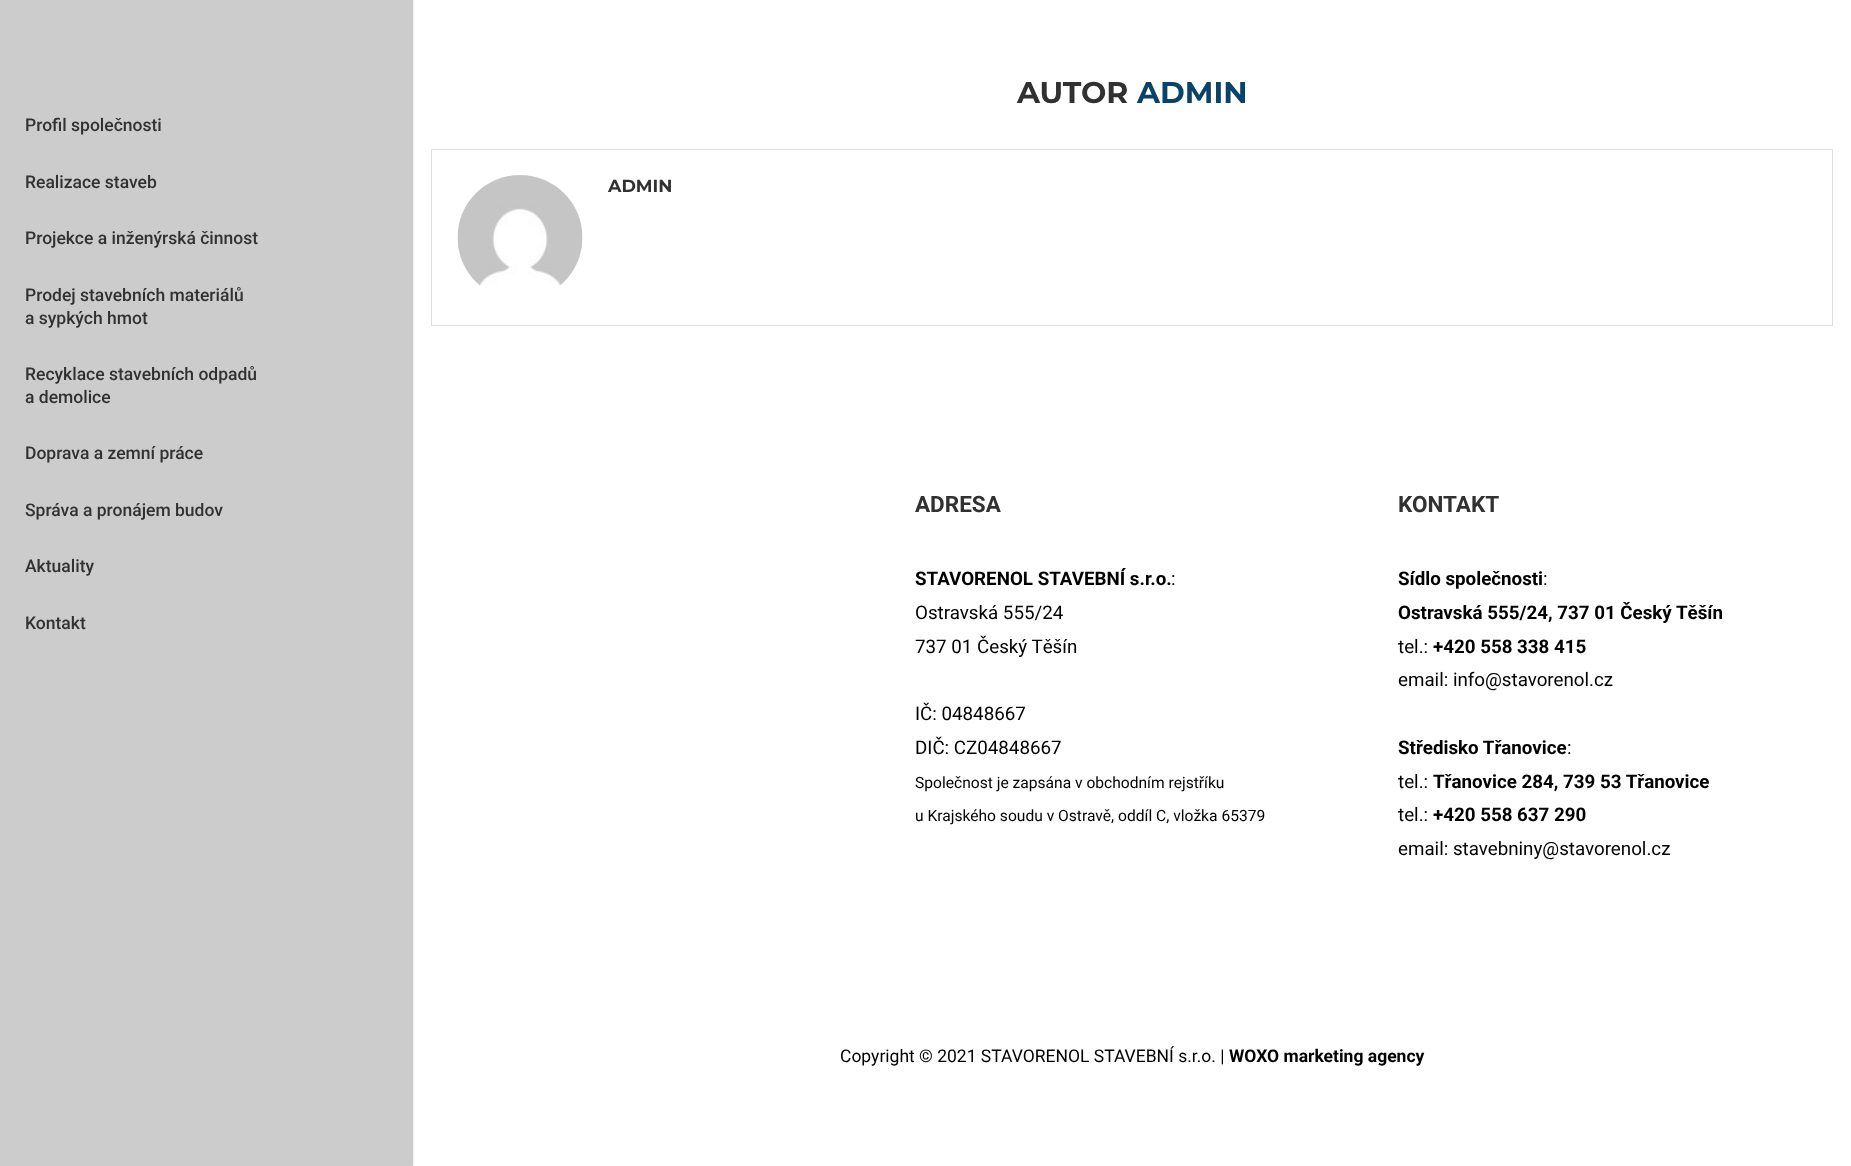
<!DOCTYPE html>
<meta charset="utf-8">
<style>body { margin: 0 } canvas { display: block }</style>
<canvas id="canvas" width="1851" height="1166"></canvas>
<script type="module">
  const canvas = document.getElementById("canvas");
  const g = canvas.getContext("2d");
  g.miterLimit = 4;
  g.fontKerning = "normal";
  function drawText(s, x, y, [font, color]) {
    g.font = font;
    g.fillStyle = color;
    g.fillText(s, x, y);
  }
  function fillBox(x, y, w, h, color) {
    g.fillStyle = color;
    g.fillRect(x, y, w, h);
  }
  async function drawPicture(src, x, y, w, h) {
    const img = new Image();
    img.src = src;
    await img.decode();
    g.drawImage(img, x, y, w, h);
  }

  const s1 = ["500 17.5px Roboto", "#313131"];
  const s2 = ["bold 30px Montserrat", "#313131"];
  const s3 = ["bold 30px Montserrat", "#094468"];
  const s4 = ["bold 17.5px Montserrat", "#313131"];
  const s5 = ["bold 22.5px Roboto", "#313131"];
  const s6 = ["bold 18.75px Roboto", "#000000"];
  const s7 = ["18.75px Roboto", "#000000"];
  const s8 = ["15.6px Roboto", "#000000"];
  const s9 = ["17.5px Roboto", "#000000"];
  const s10 = ["bold 17.5px Roboto", "#000000"];

  fillBox(0, 0, 1851, 1166, "#FFFFFF");
  g.fillStyle = "rgba(0, 0, 0, 0.15)";
  g.filter = "blur(1px)";
  g.beginPath();
  g.rect(0, 0, 413, 1166);
  g.fill();
  g.filter = "none";
  fillBox(0, 0, 413, 1166, "#CCCCCC");
  drawText("Profil společnosti", 25, 131, s1);
  drawText("Realizace staveb", 25, 188, s1);
  drawText("Projekce a inženýrská činnost", 25, 244, s1);
  drawText("Prodej stavebních materiálů", 25, 301, s1);
  drawText("a sypkých hmot", 25, 324, s1);
  drawText("Recyklace stavebních odpadů", 25, 380, s1);
  drawText("a demolice", 25, 403, s1);
  drawText("Doprava a zemní práce", 25, 459, s1);
  drawText("Správa a pronájem budov", 25, 516, s1);
  drawText("Aktuality", 25, 572, s1);
  drawText("Kontakt", 25, 629, s1);
  drawText("AUTOR", 1017, 103, s2);
  drawText("ADMIN", 1137, 103, s3);
  g.strokeStyle = "#DEDEDE";
  g.strokeRect(431.5, 149.5, 1401, 176);
  await drawPicture("pic1.png", 457, 175, 126, 111);
  drawText("ADMIN", 608, 192, s4);
  drawText("ADRESA", 915, 512, s5);
  drawText("STAVORENOL STAVEBNÍ s.r.o.", 915, 585, s6);
  drawText(":", 1171, 585, s7);
  drawText("Ostravská 555/24", 915, 619, s7);
  drawText("737 01 Český Těšín", 915, 653, s7);
  drawText("IČ: 04848667", 915, 720, s7);
  drawText("DIČ: CZ04848667", 915, 754, s7);
  drawText("Společnost je zapsána v obchodním rejstříku", 915, 788, s8);
  drawText("u Krajského soudu v Ostravě, oddíl C, vložka 65379", 915, 821, s8);
  drawText("KONTAKT", 1398, 512, s5);
  drawText("Sídlo společnosti", 1398, 585, s6);
  drawText(":", 1543, 585, s7);
  drawText("Ostravská 555/24, 737 01 Český Těšín", 1398, 619, s6);
  drawText("tel.:", 1398, 653, s7);
  drawText("+420 558 338 415", 1433, 653, s6);
  drawText("email: info@stavorenol.cz", 1398, 686, s7);
  drawText("Středisko Třanovice", 1398, 754, s6);
  drawText(":", 1567, 754, s7);
  drawText("tel.:", 1398, 788, s7);
  drawText("Třanovice 284, 739 53 Třanovice", 1433, 788, s6);
  drawText("tel.:", 1398, 821, s7);
  drawText("+420 558 637 290", 1433, 821, s6);
  drawText("email: stavebniny@stavorenol.cz", 1398, 855, s7);
  drawText("Copyright © 2021 STAVORENOL STAVEBNÍ s.r.o. |", 840, 1062, s9);
  drawText("WOXO marketing agency", 1229, 1062, s10);
</script>
